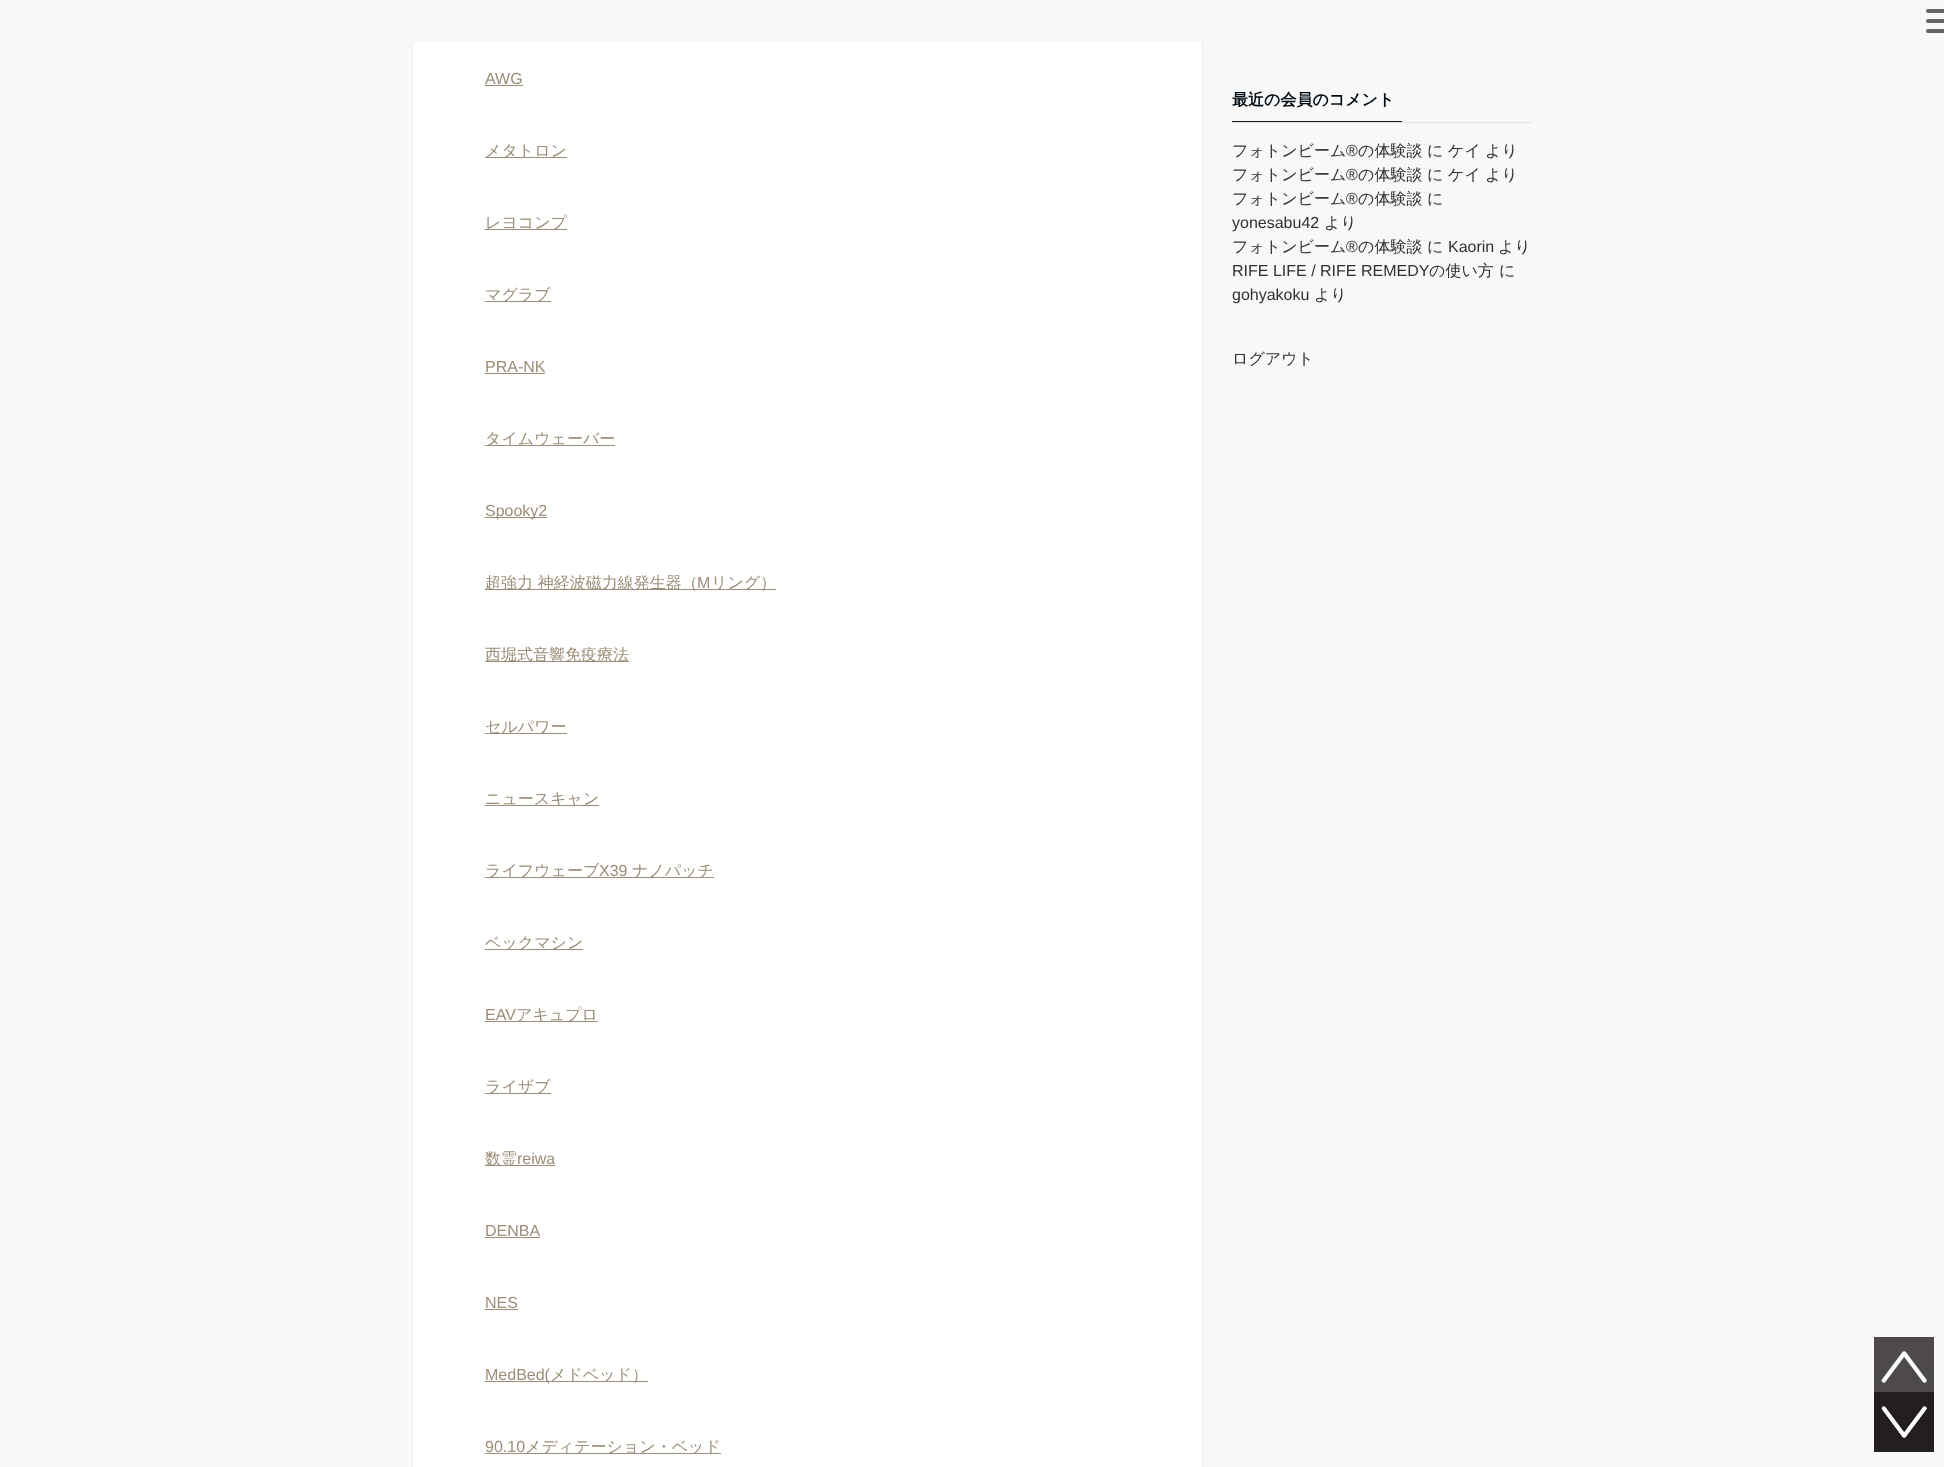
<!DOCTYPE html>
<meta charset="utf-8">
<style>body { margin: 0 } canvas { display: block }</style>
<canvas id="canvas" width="1944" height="1467"></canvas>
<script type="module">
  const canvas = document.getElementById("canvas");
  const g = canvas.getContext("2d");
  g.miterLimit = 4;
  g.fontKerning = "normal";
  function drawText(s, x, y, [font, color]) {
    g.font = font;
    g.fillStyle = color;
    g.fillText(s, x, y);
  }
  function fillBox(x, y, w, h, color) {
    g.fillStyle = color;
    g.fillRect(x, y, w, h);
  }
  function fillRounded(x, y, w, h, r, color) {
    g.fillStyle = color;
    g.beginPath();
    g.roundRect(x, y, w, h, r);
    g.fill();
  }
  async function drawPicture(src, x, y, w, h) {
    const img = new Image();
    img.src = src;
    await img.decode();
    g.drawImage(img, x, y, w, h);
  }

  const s1 = ["16px Liberation Sans", "#9B8D77"];
  const s2 = ["500 16px WenQuanYi Zen Hei", "#9B8D77"];
  const s3 = ["bold 16px WenQuanYi Zen Hei", "#000C15"];
  const s4 = ["500 16px WenQuanYi Zen Hei", "#303030"];
  const s5 = ["16px Liberation Sans", "#303030"];

  fillBox(0, 0, 1944, 1467, "#F8F8F8");
  fillBox(413, 42, 789, 1425, "#FFFFFF");
  g.strokeStyle = "#EBEDF0";
  g.strokeRect(412.5, -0.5, 790, 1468);
  fillBox(412, 0, 791, 42, "#F7F7F7");
  fillRounded(1926, 9, 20, 4, 2, "#666666");
  fillRounded(1926, 19, 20, 4, 2, "#666666");
  fillRounded(1926, 29, 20, 4, 2, "#666666");
  drawText("AWG", 485, 84, s1);
  fillBox(485, 85, 38, 1, "#9B8D77");
  fillBox(485, 157, 82, 1, "#9B8D77");
  drawText("メタトロン", 485, 156, s2);
  fillBox(485, 229, 82, 1, "#9B8D77");
  drawText("レヨコンプ", 485, 228, s2);
  fillBox(485, 301, 66, 1, "#9B8D77");
  drawText("マグラブ", 485, 300, s2);
  drawText("PRA-NK", 485, 372, s1);
  fillBox(485, 373, 60, 1, "#9B8D77");
  fillBox(485, 445, 130, 1, "#9B8D77");
  drawText("タイムウェーバー", 485, 444, s2);
  fillBox(485, 517, 62, 1, "#9B8D77");
  drawText("Spooky2", 485, 516, s1);
  fillBox(485, 589, 291, 1, "#9B8D77");
  drawText("超強力 神経波磁力線発生器（", 485, 588, s2);
  drawText("M", 697, 588, s1);
  drawText("リング）", 711, 588, s2);
  fillBox(485, 661, 144, 1, "#9B8D77");
  drawText("西堀式音響免疫療法", 485, 660, s2);
  fillBox(485, 733, 82, 1, "#9B8D77");
  drawText("セルパワー", 485, 732, s2);
  fillBox(485, 805, 114, 1, "#9B8D77");
  drawText("ニュースキャン", 485, 804, s2);
  fillBox(485, 877, 229, 1, "#9B8D77");
  drawText("ライフウェーブ", 485, 876, s2);
  drawText("X39", 599, 876, s1);
  drawText("ナノパッチ", 632, 876, s2);
  fillBox(485, 949, 98, 1, "#9B8D77");
  drawText("ベックマシン", 485, 948, s2);
  drawText("EAV", 485, 1020, s1);
  fillBox(485, 1021, 113, 1, "#9B8D77");
  drawText("アキュプロ", 516, 1020, s2);
  fillBox(485, 1093, 66, 1, "#9B8D77");
  drawText("ライザブ", 485, 1092, s2);
  fillBox(485, 1165, 70, 1, "#9B8D77");
  drawText("数霊", 485, 1164, s2);
  drawText("reiwa", 517, 1164, s1);
  drawText("DENBA", 485, 1236, s1);
  fillBox(485, 1237, 55, 1, "#9B8D77");
  drawText("NES", 485, 1308, s1);
  fillBox(485, 1309, 33, 1, "#9B8D77");
  fillBox(485, 1381, 163, 1, "#9B8D77");
  drawText("MedBed(", 485, 1380, s1);
  drawText("メドベッド）", 550, 1380, s2);
  drawText("90.10", 485, 1452, s1);
  fillBox(485, 1453, 236, 1, "#9B8D77");
  drawText("メディテーション・ベッド", 525, 1452, s2);
  fillBox(1232, 122, 300, 1, "#E2E5E8");
  fillBox(1232, 121, 170, 1, "#161410");
  drawText("最近の会員のコメント", 1232, 105, s3);
  drawText("フォトンビーム", 1232, 156, s4);
  drawText("®︎", 1346, 156, s5);
  drawText("の体験談", 1358, 156, s4);
  drawText("に", 1427, 156, s4);
  drawText("ケイ", 1448, 156, s4);
  drawText("より", 1485, 156, s4);
  drawText("フォトンビーム", 1232, 180, s4);
  drawText("®︎", 1346, 180, s5);
  drawText("の体験談", 1358, 180, s4);
  drawText("に", 1427, 180, s4);
  drawText("ケイ", 1448, 180, s4);
  drawText("より", 1485, 180, s4);
  drawText("フォトンビーム", 1232, 204, s4);
  drawText("®︎", 1346, 204, s5);
  drawText("の体験談", 1358, 204, s4);
  drawText("に", 1427, 204, s4);
  drawText("yonesabu42", 1232, 228, s5);
  drawText("より", 1324, 228, s4);
  drawText("フォトンビーム", 1232, 252, s4);
  drawText("®︎", 1346, 252, s5);
  drawText("の体験談", 1358, 252, s4);
  drawText("に", 1427, 252, s4);
  drawText("Kaorin", 1448, 252, s5);
  drawText("より", 1498, 252, s4);
  drawText("RIFE LIFE / RIFE REMEDY", 1232, 276, s5);
  drawText("の使い方", 1429, 276, s4);
  drawText("に", 1499, 276, s4);
  drawText("gohyakoku", 1232, 300, s5);
  drawText("より", 1314, 300, s4);
  drawText("ログアウト", 1232, 364, s4);
  await drawPicture("pic1.png", 1874, 1337, 60, 55);
  await drawPicture("pic2.png", 1874, 1392, 60, 60);
</script>
